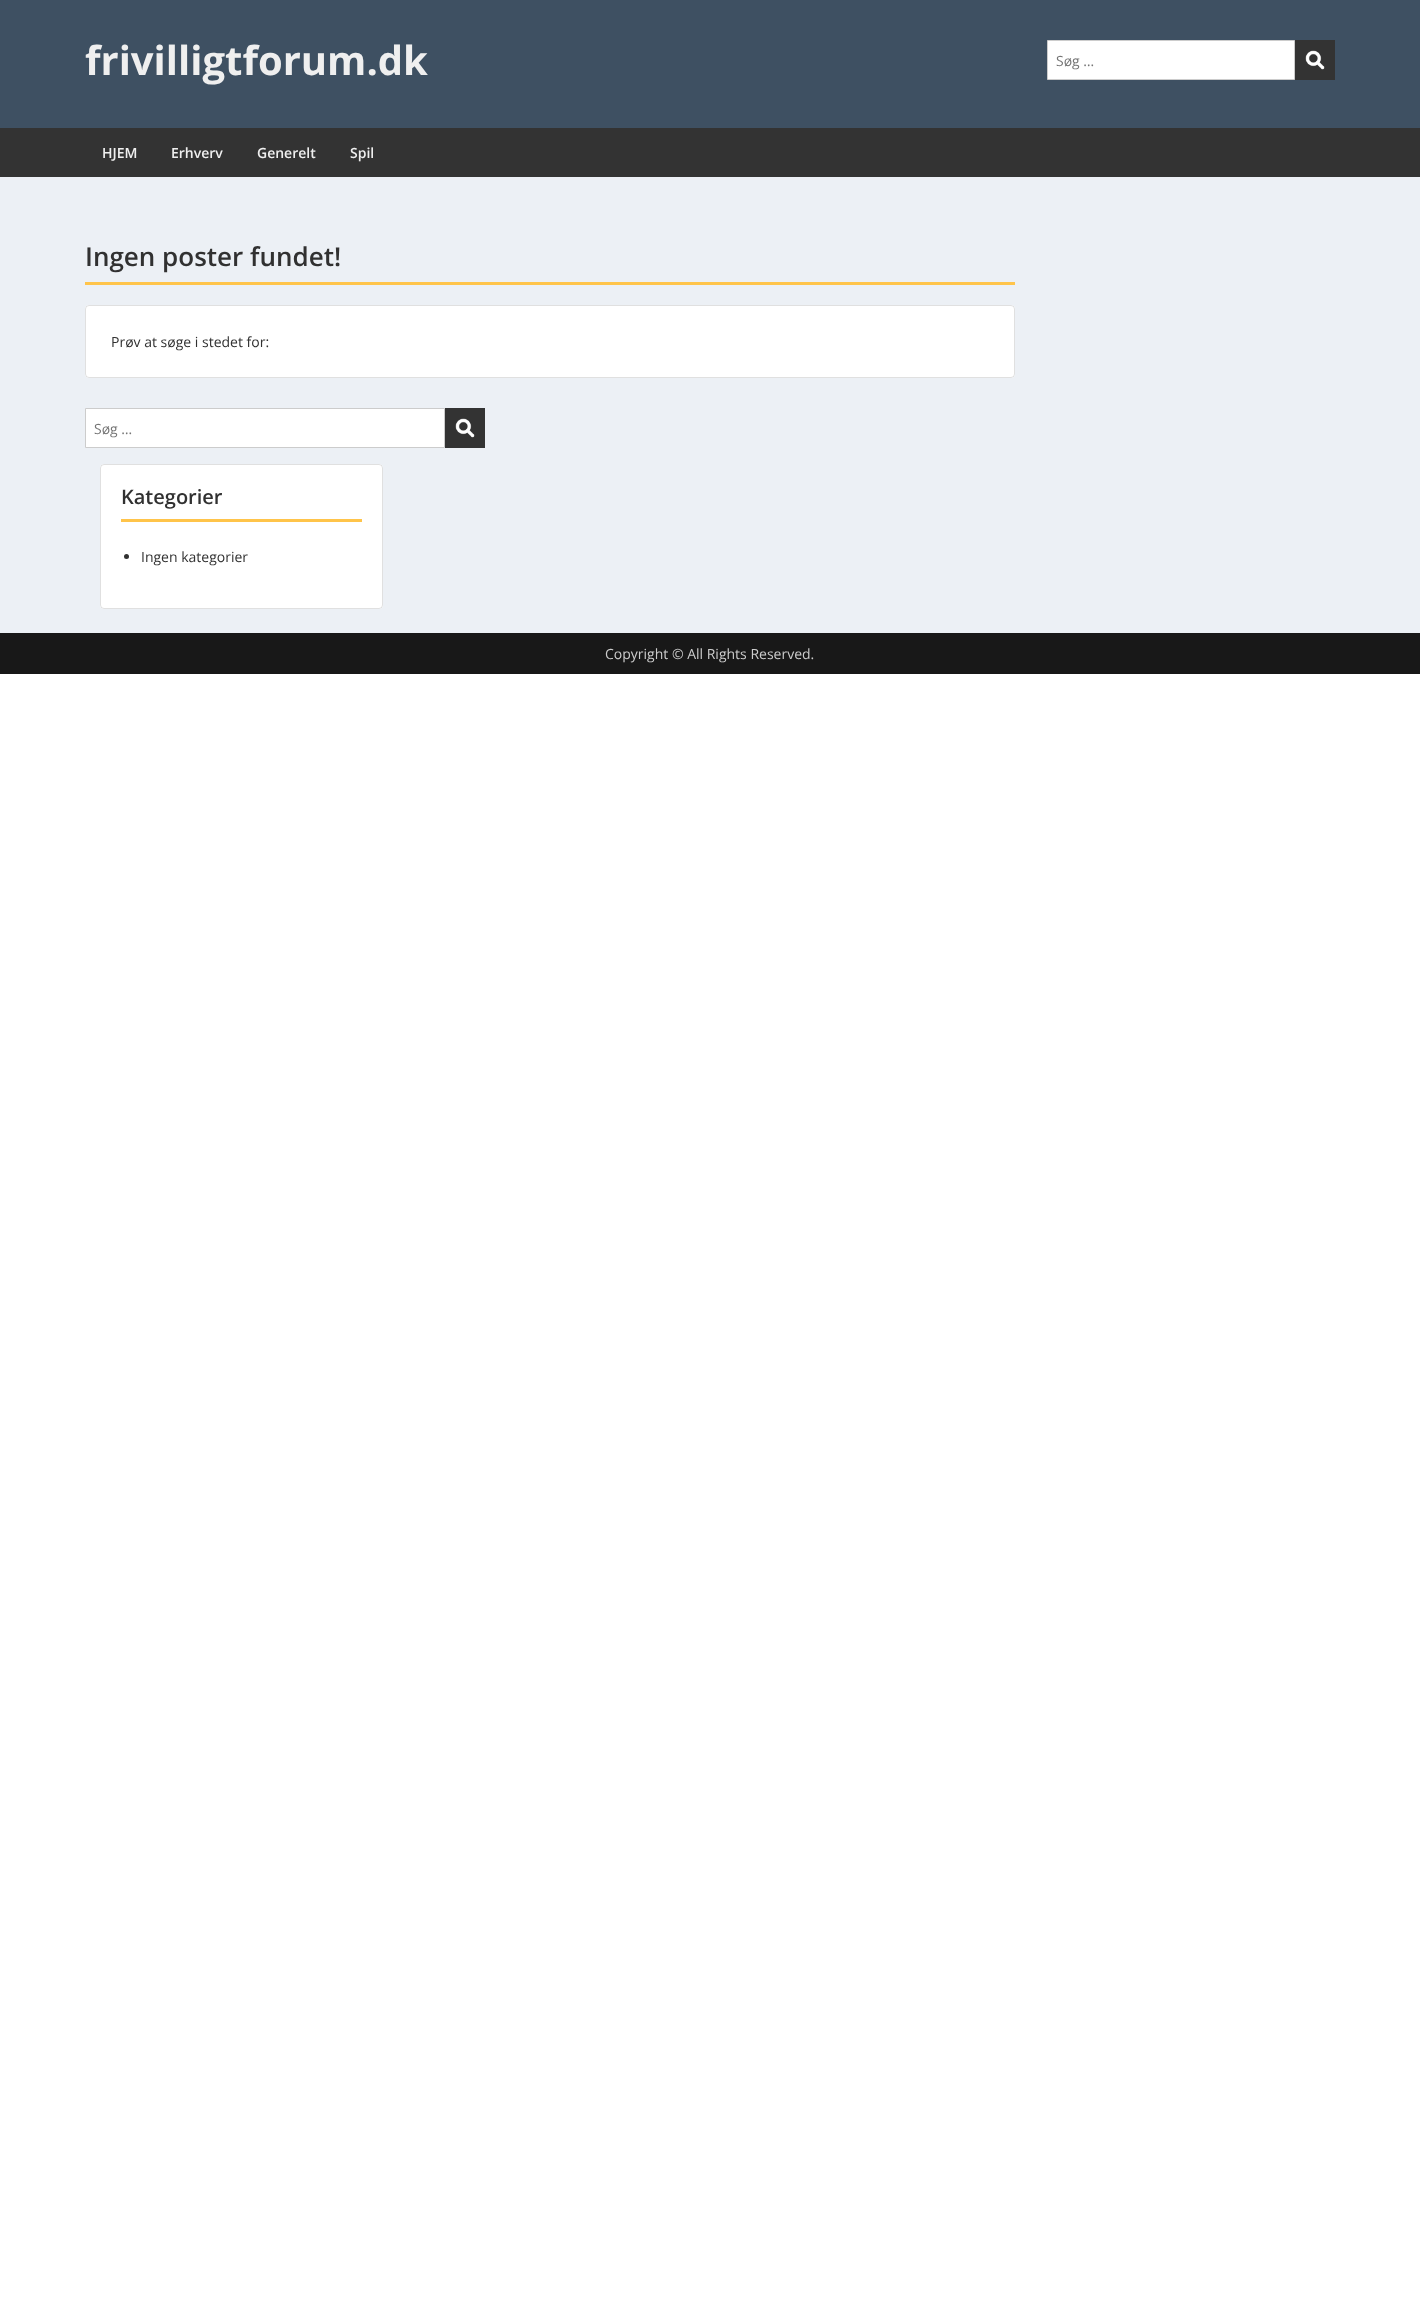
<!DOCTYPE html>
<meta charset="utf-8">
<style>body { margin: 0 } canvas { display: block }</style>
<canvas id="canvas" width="1420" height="2309"></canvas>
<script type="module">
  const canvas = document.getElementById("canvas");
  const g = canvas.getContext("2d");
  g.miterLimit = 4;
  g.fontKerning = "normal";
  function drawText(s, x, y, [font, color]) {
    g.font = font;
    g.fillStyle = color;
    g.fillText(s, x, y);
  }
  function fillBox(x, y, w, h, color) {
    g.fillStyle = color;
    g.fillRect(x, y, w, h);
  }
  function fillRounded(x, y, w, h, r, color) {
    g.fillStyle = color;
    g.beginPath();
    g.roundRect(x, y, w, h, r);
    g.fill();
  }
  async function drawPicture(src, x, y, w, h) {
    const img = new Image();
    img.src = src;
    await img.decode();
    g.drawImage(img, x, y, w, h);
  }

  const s1 = ["bold 40px Open Sans", "#EFEFEF"];
  const s2 = ["14px Open Sans", "#757575"];
  const s3 = ["600 14px Open Sans", "#EFEFEF"];
  const s4 = ["600 26px Open Sans", "#313131"];
  const s5 = ["14px Open Sans", "#313131"];
  const s6 = ["600 20px Open Sans", "#313131"];
  const s7 = ["14px Open Sans", "#CCCCCC"];

  fillBox(0, 0, 1420, 2309, "#FFFFFF");
  fillBox(0, 177, 1420, 456, "#ECF0F5");
  fillBox(0, 0, 1420, 128, "#3E5062");
  drawText("frivilligtforum.dk", 85, 75, s1);
  g.fillStyle = "#FFFFFF";
  g.beginPath();
  g.rect(1047.5, 40.5, 247, 39);
  g.fill();
  g.strokeStyle = "#CCCCCC";
  g.stroke();
  drawText("Søg …", 1056, 66, s2);
  fillBox(1295, 40, 40, 40, "#333333");
  await drawPicture("pic1.png", 1305, 50, 20, 20);
  fillBox(0, 128, 1420, 49, "#333333");
  drawText("HJEM", 102, 158, s3);
  drawText("Erhverv", 171, 158, s3);
  drawText("Generelt", 257, 158, s3);
  drawText("Spil", 350, 158, s3);
  fillBox(85, 282, 930, 3, "#FFC44A");
  drawText("Ingen poster fundet!", 85, 266, s4);
  fillRounded(85, 305, 930, 73, 4, "#FFFFFF");
  g.beginPath();
  g.roundRect(85.5, 305.5, 929, 72, 3.5);
  g.strokeStyle = "rgba(0, 0, 0, 0.12)";
  g.stroke();
  drawText("Prøv at søge i stedet for:", 111, 347, s5);
  g.fillStyle = "#FFFFFF";
  g.beginPath();
  g.rect(85.5, 408.5, 359, 39);
  g.fill();
  g.strokeStyle = "#CCCCCC";
  g.stroke();
  drawText("Søg …", 94, 434, s2);
  fillBox(445, 408, 40, 40, "#333333");
  await drawPicture("pic1.png", 455, 418, 20, 20);
  fillRounded(100, 464, 283, 145, 4, "#FFFFFF");
  g.beginPath();
  g.roundRect(100.5, 464.5, 282, 144, 3.5);
  g.strokeStyle = "rgba(0, 0, 0, 0.12)";
  g.stroke();
  fillBox(121, 519, 241, 3, "#FFC44A");
  drawText("Kategorier", 121, 504, s6);
  g.beginPath();
  g.arc(126.5, 556.5, 2.5, 0, Math.PI * 2);
  g.fill();
  drawText("Ingen kategorier", 141, 562, s5);
  fillBox(0, 633, 1420, 41, "#181818");
  drawText("Copyright © All Rights Reserved.", 605, 659, s7);
</script>
